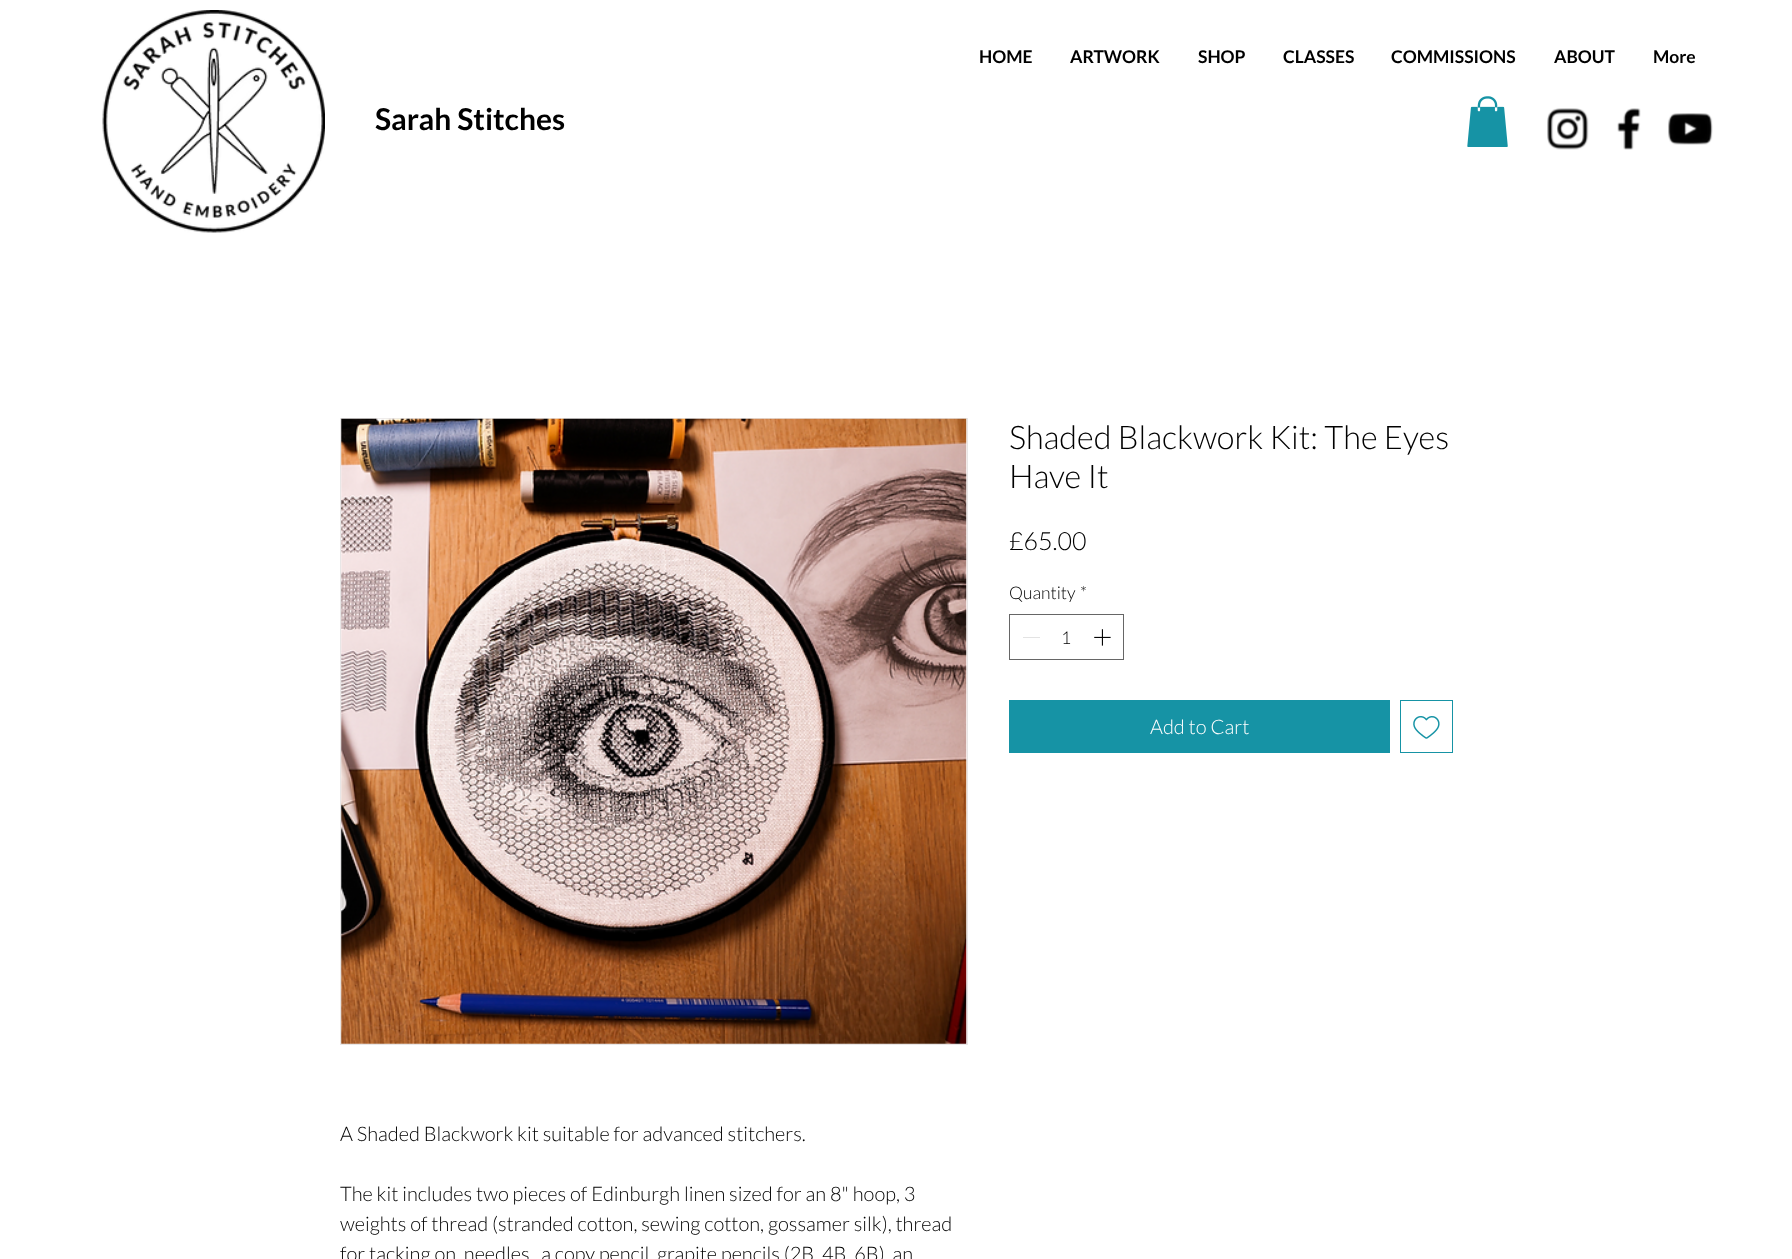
<!DOCTYPE html>
<meta charset="utf-8">
<style>body { margin: 0 } canvas { display: block }</style>
<canvas id="canvas" width="1792" height="1259"></canvas>
<script type="module">
  const canvas = document.getElementById("canvas");
  const g = canvas.getContext("2d");
  g.miterLimit = 4;
  g.fontKerning = "normal";
  function drawText(s, x, y, [font, color]) {
    g.font = font;
    g.fillStyle = color;
    g.fillText(s, x, y);
  }
  function fillBox(x, y, w, h, color) {
    g.fillStyle = color;
    g.fillRect(x, y, w, h);
  }
  async function drawPicture(src, x, y, w, h) {
    const img = new Image();
    img.src = src;
    await img.decode();
    g.drawImage(img, x, y, w, h);
  }

  const s1 = ["bold 17.5px Lato", "#000000"];
  const s2 = ["bold 30px Lato", "#000000"];
  const s3 = ["300 32.5px Lato", "#000000"];
  const s4 = ["300 25px Lato", "#000000"];
  const s5 = ["300 17.5px Lato", "#000000"];
  const s6 = ["300 20px Lato", "#FFFFFF"];
  const s7 = ["300 20px Lato", "#000000"];

  fillBox(0, 0, 1792, 1259, "#FFFFFF");
  drawText("HOME", 979, 63, s1);
  drawText("ARTWORK", 1070, 63, s1);
  drawText("SHOP", 1198, 63, s1);
  drawText("CLASSES", 1283, 63, s1);
  drawText("COMMISSIONS", 1391, 63, s1);
  drawText("ABOUT", 1554, 63, s1);
  drawText("More", 1653, 63, s1);
  await drawPicture("pic1.png", 1547, 108, 42, 42);
  await drawPicture("pic2.png", 1617, 108, 24, 42);
  await drawPicture("pic3.png", 1668, 113, 45, 32);
  await drawPicture("pic4.png", 102, 10, 223, 223);
  drawText("Sarah Stitches", 375, 130, s2);
  await drawPicture("pic5.png", 1467, 96, 41, 51);
  drawText("Shaded Blackwork Kit: The Eyes", 1009, 449, s3);
  drawText("Have It", 1009, 488, s3);
  drawText("£65.00", 1009, 550, s4);
  drawText("Quantity", 1009, 599, s5);
  drawText("*", 1080, 599, s5);
  g.strokeStyle = "#666666";
  g.strokeRect(1009.5, 614.5, 114, 45);
  fillBox(1023, 637, 17, 1, "#E3E3E3");
  drawText("1", 1061, 644, s5);
  await drawPicture("pic6.png", 1094, 629, 17, 17);
  fillBox(1009, 700, 381, 53, "#1693A5");
  drawText("Add to Cart", 1150, 734, s6);
  g.strokeStyle = "#1693A5";
  g.strokeRect(1400.5, 700.5, 52, 52);
  await drawPicture("pic7.png", 1413, 716, 27, 23);
  g.strokeStyle = "#E8E6E6";
  g.strokeRect(340.5, 418.5, 627, 626);
  await drawPicture("pic8.png", 341, 418, 626, 626);
  drawText("A Shaded Blackwork kit suitable for advanced stitchers.", 340, 1141, s7);
  drawText("The kit includes two pieces of Edinburgh linen sized for an 8\" hoop, 3", 340, 1201, s7);
  drawText("weights of thread (stranded cotton, sewing cotton, gossamer silk), thread", 340, 1231, s7);
  drawText("for tacking on, needles,  a copy pencil, grapite pencils (2B, 4B. 6B), an", 340, 1261, s7);
</script>
